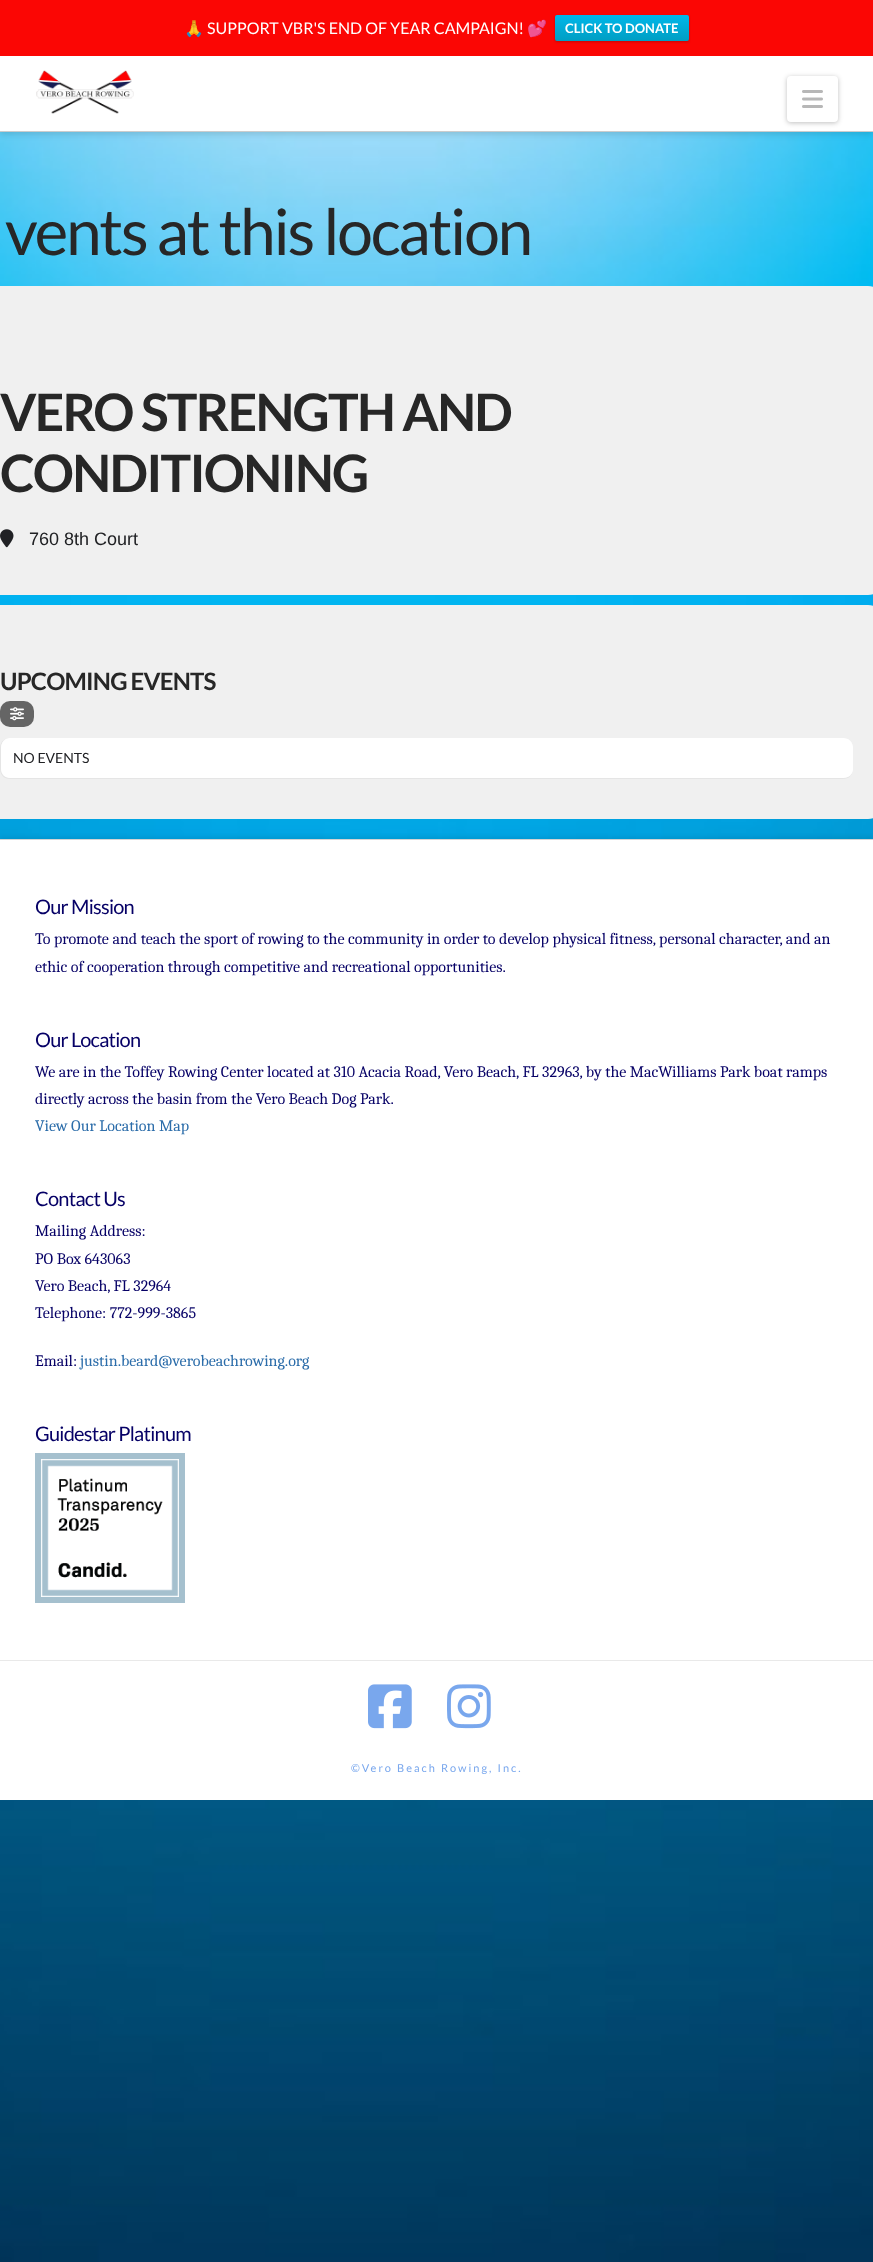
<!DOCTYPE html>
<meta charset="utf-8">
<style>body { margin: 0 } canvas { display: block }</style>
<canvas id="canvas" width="873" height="2262"></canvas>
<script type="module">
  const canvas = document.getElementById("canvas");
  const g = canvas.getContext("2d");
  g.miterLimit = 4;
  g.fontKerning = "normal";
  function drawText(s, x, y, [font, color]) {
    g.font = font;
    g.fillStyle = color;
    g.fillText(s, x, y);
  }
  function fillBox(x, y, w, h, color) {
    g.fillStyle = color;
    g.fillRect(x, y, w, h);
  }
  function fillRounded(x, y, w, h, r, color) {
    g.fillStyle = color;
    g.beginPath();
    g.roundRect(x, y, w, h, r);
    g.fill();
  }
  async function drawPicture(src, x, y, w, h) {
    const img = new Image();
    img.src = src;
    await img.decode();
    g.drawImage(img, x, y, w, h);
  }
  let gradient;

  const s1 = ["16px Noto Color Emoji", "#FFFFFF"];
  const s2 = ["16px Lato", "#FFFFFF"];
  const s3 = ["bold 13px Lato", "#FFFFFF"];
  const s4 = ["64px Lato", "#272727"];
  const s5 = ["bold 51.5px Lato", "#272727"];
  const s6 = ["18px Liberation Sans", "#202124"];
  const s7 = ["bold 24px Lato", "#272727"];
  const s8 = ["14px Lato", "#202124"];
  const s9 = ["20px Lato", "#060066"];
  const s10 = ["16px Caladea", "#060066"];
  const s11 = ["16px Caladea", "#2C6DAA"];
  const s12 = ["11px Lato", "#79A7ED"];

  fillBox(0, 0, 873, 2262, "#FFFFFF");
  await drawPicture("pic1.png", 0, 132, 873, 2130);
  g.fillStyle = "rgba(0, 0, 0, 0.13)";
  g.filter = "blur(3px)";
  g.beginPath();
  g.rect(0, 58, 873, 76);
  g.fill();
  g.filter = "none";
  fillBox(0, 0, 873, 56, "#FB0604");
  drawText("🙏", 184, 34, s1);
  drawText("SUPPORT VBR'S END OF YEAR CAMPAIGN!", 207, 34, s2);
  drawText("💕", 527, 34, s1);
  g.fillStyle = "rgba(0, 0, 0, 0.2)";
  g.filter = "blur(1px)";
  g.beginPath();
  g.roundRect(555, 16, 134, 26, 2);
  g.fill();
  g.filter = "none";
  gradient = g.createLinearGradient(622, 15, 622, 41);
  gradient.addColorStop(0, "#00B7EA");
  gradient.addColorStop(1, "#009EC3");
  g.fillStyle = gradient;
  g.beginPath();
  g.roundRect(555, 15, 134, 26, 2);
  g.fill();
  drawText("CLICK TO DONATE", 565, 33, s3);
  fillBox(0, 56, 873, 75, "#FFFFFF");
  fillBox(0, 131, 873, 1, "#CCCCCC");
  await drawPicture("pic2.png", 36, 70, 98, 44);
  g.fillStyle = "rgba(0, 0, 0, 0.25)";
  g.filter = "blur(2.5px)";
  g.beginPath();
  g.roundRect(787, 77, 51, 46, 4);
  g.fill();
  g.filter = "none";
  fillRounded(787, 76, 51, 46, 4, "#FFFFFF");
  await drawPicture("pic3.png", 802, 90, 21, 18);
  g.letterSpacing = "-2.25px";
  drawText("vents at this location", 5, 255, s4);
  fillRounded(-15, 286, 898, 309, 15, "#F0F0F0");
  g.letterSpacing = "-1.75px";
  drawText("VERO STRENGTH AND", 0, 431, s5);
  drawText("CONDITIONING", 0, 492, s5);
  await drawPicture("pic4.png", 0, 529, 14, 19);
  g.letterSpacing = "0px";
  drawText("760 8th Court", 29, 545, s6);
  fillRounded(-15, 605, 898, 214, 15, "#F0F0F0");
  g.letterSpacing = "-0.8px";
  drawText("UPCOMING EVENTS", 0, 690, s7);
  fillRounded(0, 701, 34, 26, 10, "#656565");
  await drawPicture("pic5.png", 10, 707, 14, 14);
  g.fillStyle = "#E5E5E5";
  g.beginPath();
  g.moveTo(10, 738);
  g.lineTo(843, 738);
  g.bezierCurveTo(849, 738, 853, 742, 853, 748);
  g.lineTo(853, 769);
  g.bezierCurveTo(853, 775, 849, 779, 843, 779);
  g.lineTo(10, 779);
  g.bezierCurveTo(4, 779, 0, 775, 0, 769);
  g.lineTo(0, 748);
  g.bezierCurveTo(0, 742, 4, 738, 10, 738);
  g.closePath();
  g.moveTo(10, 738);
  g.lineTo(843, 738);
  g.bezierCurveTo(849, 738, 853, 742, 853, 748);
  g.lineTo(853, 769);
  g.bezierCurveTo(853, 774, 849, 778, 843, 778);
  g.lineTo(10, 778);
  g.bezierCurveTo(5, 778, 1, 774, 1, 769);
  g.lineTo(1, 748);
  g.bezierCurveTo(1, 742, 5, 738, 10, 738);
  g.closePath();
  g.fill("evenodd");
  g.fillStyle = "#FFFFFF";
  g.beginPath();
  g.moveTo(10, 738);
  g.bezierCurveTo(5, 738, 1, 742, 1, 748);
  g.lineTo(1, 769);
  g.bezierCurveTo(1, 774, 5, 778, 10, 778);
  g.lineTo(843, 778);
  g.bezierCurveTo(849, 778, 853, 774, 853, 769);
  g.lineTo(853, 748);
  g.bezierCurveTo(853, 742, 849, 738, 843, 738);
  g.closePath();
  g.fill();
  g.letterSpacing = "0px";
  drawText("NO EVENTS", 13, 763, s8);
  g.fillStyle = "rgba(0, 0, 0, 0.07)";
  g.filter = "blur(2px)";
  g.beginPath();
  g.rect(0, 837, 873, 821);
  g.fill();
  g.filter = "none";
  fillBox(0, 840, 873, 820, "#FFFFFF");
  fillBox(0, 839, 873, 1, "#D4D4D4");
  g.letterSpacing = "-0.75px";
  drawText("Our Mission", 35, 914, s9);
  g.letterSpacing = "0px";
  drawText("To promote and teach the sport of rowing to the community in order to develop physical fitness, personal character, and an", 35, 944, s10);
  drawText("ethic of cooperation through competitive and recreational opportunities.", 35, 972, s10);
  g.letterSpacing = "-0.75px";
  drawText("Our Location", 35, 1047, s9);
  g.letterSpacing = "0px";
  drawText("We are in the Toffey Rowing Center located at 310 Acacia Road, Vero Beach, FL 32963, by the MacWilliams Park boat ramps", 35, 1077, s10);
  drawText("directly across the basin from the Vero Beach Dog Park.", 35, 1104, s10);
  drawText("View Our Location Map", 35, 1131, s11);
  g.letterSpacing = "-0.75px";
  drawText("Contact Us", 35, 1206, s9);
  g.letterSpacing = "0px";
  drawText("Mailing Address:", 35, 1236, s10);
  drawText("PO Box 643063", 35, 1264, s10);
  drawText("Vero Beach, FL 32964", 35, 1291, s10);
  drawText("Telephone: 772-999-3865", 35, 1318, s10);
  drawText("Email:", 35, 1366, s10);
  drawText("justin.beard@verobeachrowing.org", 80, 1366, s11);
  g.letterSpacing = "-0.75px";
  drawText("Guidestar Platinum", 35, 1441, s9);
  await drawPicture("pic6.png", 35, 1453, 150, 150);
  fillBox(0, 1661, 873, 139, "#FFFFFF");
  fillBox(0, 1660, 873, 1, "#E9E9E9");
  await drawPicture("pic7.png", 368, 1684, 44, 45);
  await drawPicture("pic8.png", 447, 1684, 44, 45);
  g.letterSpacing = "2px";
  drawText("©Vero Beach Rowing, Inc.", 351, 1772, s12);
</script>
